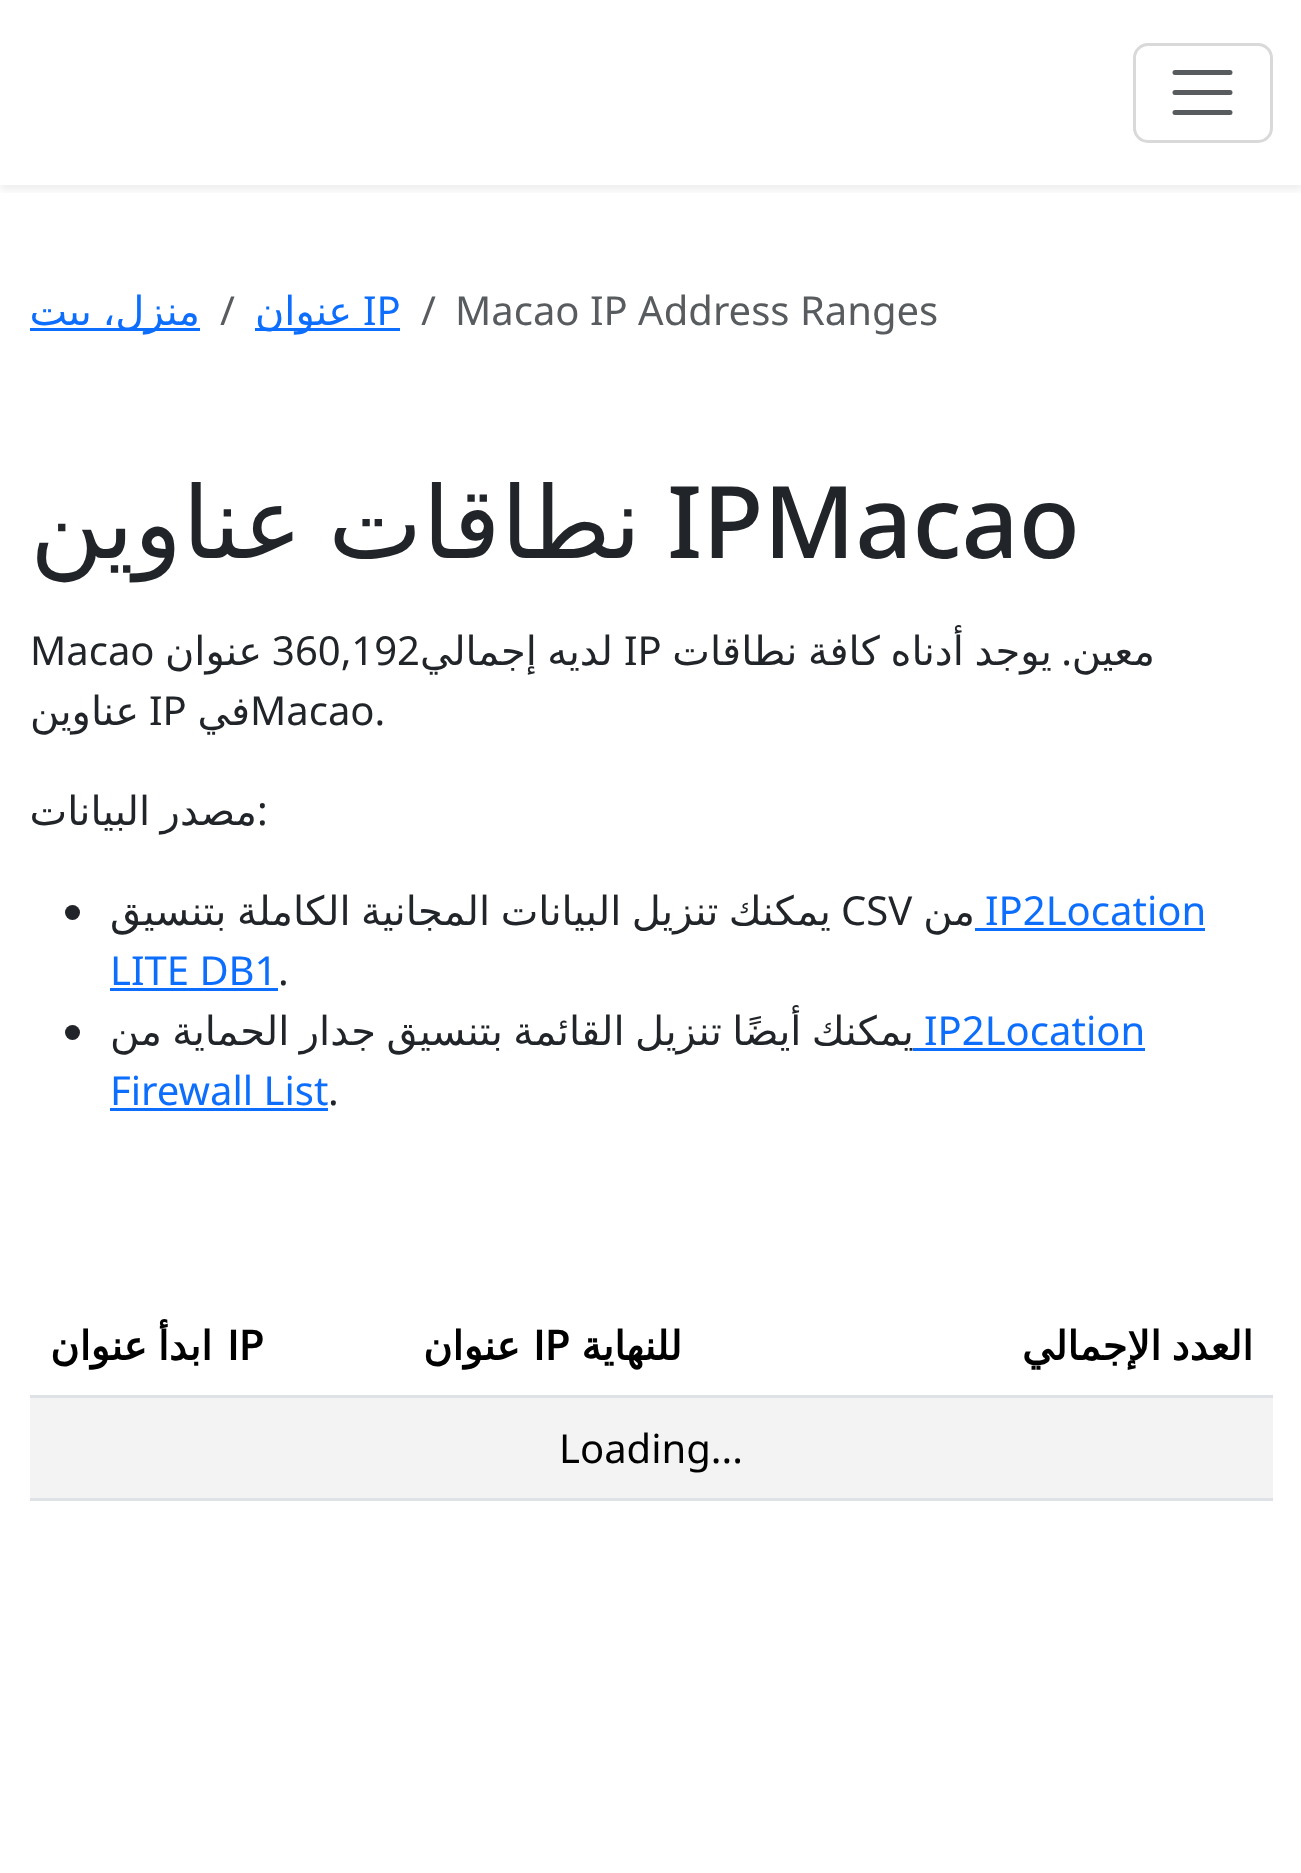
<!DOCTYPE html>
<meta charset="utf-8">
<style>body { margin: 0 } canvas { display: block }</style>
<canvas id="canvas" width="1301" height="1873"></canvas>
<script type="module">
  const canvas = document.getElementById("canvas");
  const g = canvas.getContext("2d");
  g.miterLimit = 4;
  g.fontKerning = "normal";
  function drawText(s, x, y, [font, color]) {
    g.font = font;
    g.fillStyle = color;
    g.fillText(s, x, y);
  }
  function fillBox(x, y, w, h, color) {
    g.fillStyle = color;
    g.fillRect(x, y, w, h);
  }

  const s1 = ["40px Noto Sans", "#595C5F"];
  const s2 = ["40px Noto Sans", "#0D6EFD"];
  const s3 = ["40px DejaVu Sans", "#0D6EFD"];
  const s4 = ["500 100px Noto Sans", "#212529"];
  const s5 = ["100px DejaVu Sans", "#212529"];
  const s6 = ["40px DejaVu Sans", "#212529"];
  const s7 = ["40px Noto Sans", "#212529"];
  const s8 = ["bold 40px DejaVu Sans", "#000000"];
  const s9 = ["40px Noto Sans", "#000000"];

  fillBox(0, 0, 1301, 1873, "#FFFFFF");
  g.save();
  g.beginPath();
  g.rect(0, 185, 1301, 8);
  g.clip();
  g.fillStyle = "rgba(0, 0, 0, 0.07)";
  g.filter = "blur(5px)";
  g.beginPath();
  g.rect(0, 5, 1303, 185);
  g.fill();
  g.filter = "none";
  g.restore();
  g.beginPath();
  g.roundRect(1134.5, 44.5, 137, 97, 13.5);
  g.strokeStyle = "#D9D9D9";
  g.lineWidth = 3;
  g.stroke();
  g.beginPath();
  g.moveTo(1175, 72.5);
  g.lineTo(1230, 72.5);
  g.moveTo(1175, 92.5);
  g.lineTo(1230, 92.5);
  g.moveTo(1175, 112.5);
  g.lineTo(1230, 112.5);
  g.strokeStyle = "#595C5F";
  g.lineWidth = 5;
  g.lineCap = "round";
  g.stroke();
  drawText("Macao IP Address Ranges", 455, 325, s1);
  drawText("/", 421, 325, s1);
  drawText("IP", 363, 325, s2);
  fillBox(255, 328, 145, 3, "#0D6EFD");
  g.direction = "rtl";
  drawText("عنوان", 352, 325, s3);
  g.direction = "ltr";
  drawText("/", 220, 325, s1);
  fillBox(30, 328, 170, 3, "#0D6EFD");
  g.wordSpacing = "-2.25px";
  g.direction = "rtl";
  drawText("منزل، بيت", 200, 325, s3);
  g.wordSpacing = "0px";
  g.direction = "ltr";
  drawText("IPMacao", 667, 558, s4);
  g.wordSpacing = "-6px";
  g.direction = "rtl";
  drawText("نطاقات عناوين", 641, 558, s5);
  g.wordSpacing = "0px";
  drawText("معين", 1155, 665, s6);
  drawText(".", 1072, 665, s7);
  g.wordSpacing = "-2px";
  drawText("يوجد أدناه كافة نطاقات", 1052, 665, s6);
  g.wordSpacing = "0px";
  g.direction = "ltr";
  drawText("IP", 624, 665, s7);
  g.wordSpacing = "-2.25px";
  g.direction = "rtl";
  drawText("لديه إجمالي", 613, 665, s6);
  g.wordSpacing = "0px";
  g.direction = "ltr";
  drawText("360,192", 272, 665, s7);
  g.direction = "rtl";
  drawText("عنوان", 262, 665, s6);
  g.direction = "ltr";
  drawText("Macao", 30, 665, s7);
  drawText("Macao.", 250, 725, s7);
  g.direction = "rtl";
  drawText("في", 250, 725, s6);
  g.direction = "ltr";
  drawText("IP", 149, 725, s7);
  g.direction = "rtl";
  drawText("عناوين", 139, 725, s6);
  g.direction = "ltr";
  drawText(":", 257, 825, s7);
  g.wordSpacing = "-2.25px";
  g.direction = "rtl";
  drawText("مصدر البيانات", 257, 825, s6);
  g.wordSpacing = "0px";
  g.direction = "ltr";
  drawText("IP2Location", 985, 925, s2);
  fillBox(975, 928, 230, 3, "#0D6EFD");
  g.direction = "rtl";
  drawText("من", 975, 925, s6);
  g.direction = "ltr";
  drawText("CSV", 841, 925, s7);
  g.wordSpacing = "-2.25px";
  g.direction = "rtl";
  drawText("يمكنك تنزيل البيانات المجانية الكاملة بتنسيق", 831, 925, s6);
  g.beginPath();
  g.arc(72.5, 912.5, 7.5, 0, Math.PI * 2);
  g.fill();
  g.wordSpacing = "0px";
  g.direction = "ltr";
  drawText(".", 278, 985, s7);
  drawText("LITE DB1", 110, 985, s2);
  fillBox(110, 988, 168, 3, "#0D6EFD");
  g.wordSpacing = "-2.25px";
  g.direction = "rtl";
  drawText("يمكنك أيضًا تنزيل القائمة بتنسيق جدار الحماية من", 914, 1045, s6);
  g.wordSpacing = "0px";
  g.direction = "ltr";
  drawText("IP2Location", 924, 1045, s2);
  fillBox(913, 1048, 232, 3, "#0D6EFD");
  g.fillStyle = "#212529";
  g.beginPath();
  g.arc(72.5, 1032.5, 7.5, 0, Math.PI * 2);
  g.fill();
  drawText(".", 328, 1105, s7);
  drawText("Firewall List", 110, 1105, s2);
  fillBox(110, 1108, 218, 3, "#0D6EFD");
  g.wordSpacing = "-2.25px";
  g.direction = "rtl";
  drawText("العدد الإجمالي", 1253, 1360, s8);
  fillBox(30, 1395, 1243, 3, "#DEE2E6");
  g.wordSpacing = "0px";
  drawText("للنهاية", 682, 1360, s8);
  g.direction = "ltr";
  drawText("IP", 533, 1360, s8);
  g.direction = "rtl";
  drawText("عنوان", 520, 1360, s8);
  g.direction = "ltr";
  drawText("IP", 227, 1360, s8);
  g.wordSpacing = "-2.25px";
  g.direction = "rtl";
  drawText("ابدأ عنوان", 212, 1360, s8);
  fillBox(30, 1398, 1243, 100, "#F3F3F3");
  fillBox(30, 1498, 1243, 3, "#DEE2E6");
  g.wordSpacing = "0px";
  g.direction = "ltr";
  drawText("Loading...", 559, 1463, s9);
</script>
